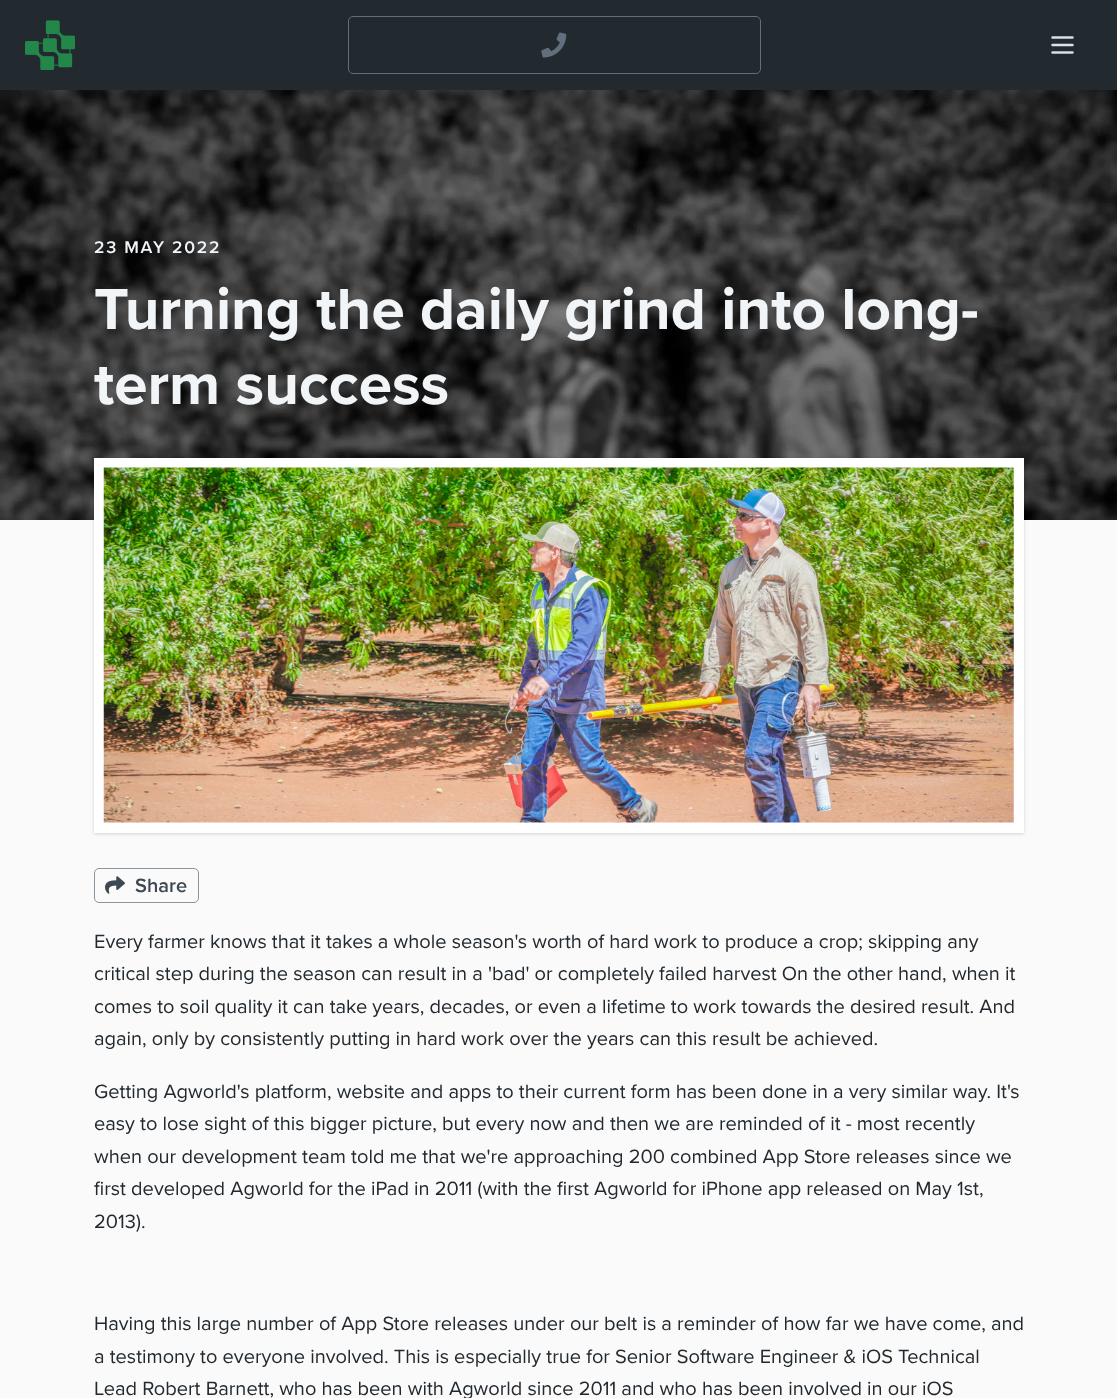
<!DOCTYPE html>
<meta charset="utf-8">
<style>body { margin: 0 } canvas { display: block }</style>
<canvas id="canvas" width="1117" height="1398"></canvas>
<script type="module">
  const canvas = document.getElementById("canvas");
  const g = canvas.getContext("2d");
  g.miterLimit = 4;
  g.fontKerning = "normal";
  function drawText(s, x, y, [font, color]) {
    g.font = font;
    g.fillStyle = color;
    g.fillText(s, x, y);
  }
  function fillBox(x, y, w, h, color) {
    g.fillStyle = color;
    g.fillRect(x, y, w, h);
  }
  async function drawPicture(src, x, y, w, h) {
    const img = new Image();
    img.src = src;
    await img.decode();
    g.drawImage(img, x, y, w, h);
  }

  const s1 = ["600 17.5px Proxima Nova", "#F1F5F8"];
  const s2 = ["bold 60px Proxima Nova", "#F1F5F8"];
  const s3 = ["600 20px Proxima Nova", "#3D4852"];
  const s4 = ["20px Proxima Nova", "#22292F"];

  fillBox(0, 0, 1117, 1398, "#FAFAFA");
  fillBox(0, 0, 1117, 90, "#22292F");
  await drawPicture("pic1.png", 25, 20, 50, 50);
  g.beginPath();
  g.roundRect(348.5, 16.5, 412, 57, 4.5);
  g.strokeStyle = "#606F7B";
  g.stroke();
  await drawPicture("pic2.png", 541, 32, 26, 26);
  await drawPicture("pic3.png", 1051, 36, 23, 18);
  await drawPicture("pic4.png", 0, 90, 1117, 430);
  g.letterSpacing = "1.75px";
  drawText("23 MAY 2022", 94, 253, s1);
  g.letterSpacing = "0px";
  drawText("Turning the daily grind into long-", 94, 329, s2);
  drawText("term success", 94, 404, s2);
  g.fillStyle = "rgba(0, 0, 0, 0.06)";
  g.filter = "blur(1px)";
  g.beginPath();
  g.rect(94, 459, 930, 375);
  g.fill();
  g.filter = "none";
  g.fillStyle = "rgba(0, 0, 0, 0.1)";
  g.filter = "blur(2px)";
  g.beginPath();
  g.rect(94, 459, 930, 375);
  g.fill();
  g.filter = "none";
  fillBox(94, 458, 930, 375, "#FFFFFF");
  await drawPicture("pic5.png", 103, 467, 911, 356);
  g.beginPath();
  g.roundRect(94.5, 868.5, 104, 34, 4.5);
  g.strokeStyle = "#8795A1";
  g.stroke();
  await drawPicture("pic6.png", 105, 876, 20, 18);
  drawText("Share", 135, 892, s3);
  drawText("Every farmer knows that it takes a whole season's worth of hard work to produce a crop; skipping any", 94, 948, s4);
  drawText("critical step during the season can result in a 'bad' or completely failed harvest On the other hand, when it", 94, 980, s4);
  drawText("comes to soil quality it can take years, decades, or even a lifetime to work towards the desired result. And", 94, 1013, s4);
  drawText("again, only by consistently putting in hard work over the years can this result be achieved.", 94, 1045, s4);
  drawText("Getting Agworld's platform, website and apps to their current form has been done in a very similar way. It's", 94, 1098, s4);
  drawText("easy to lose sight of this bigger picture, but every now and then we are reminded of it - most recently", 94, 1130, s4);
  drawText("when our development team told me that we're approaching 200 combined App Store releases since we", 94, 1163, s4);
  drawText("first developed Agworld for the iPad in 2011 (with the first Agworld for iPhone app released on May 1st,", 94, 1195, s4);
  drawText("2013).", 94, 1228, s4);
  drawText("Having this large number of App Store releases under our belt is a reminder of how far we have come, and", 94, 1330, s4);
  drawText("a testimony to everyone involved. This is especially true for Senior Software Engineer & iOS Technical", 94, 1363, s4);
  drawText("Lead Robert Barnett, who has been with Agworld since 2011 and who has been involved in our iOS", 94, 1395, s4);
</script>
